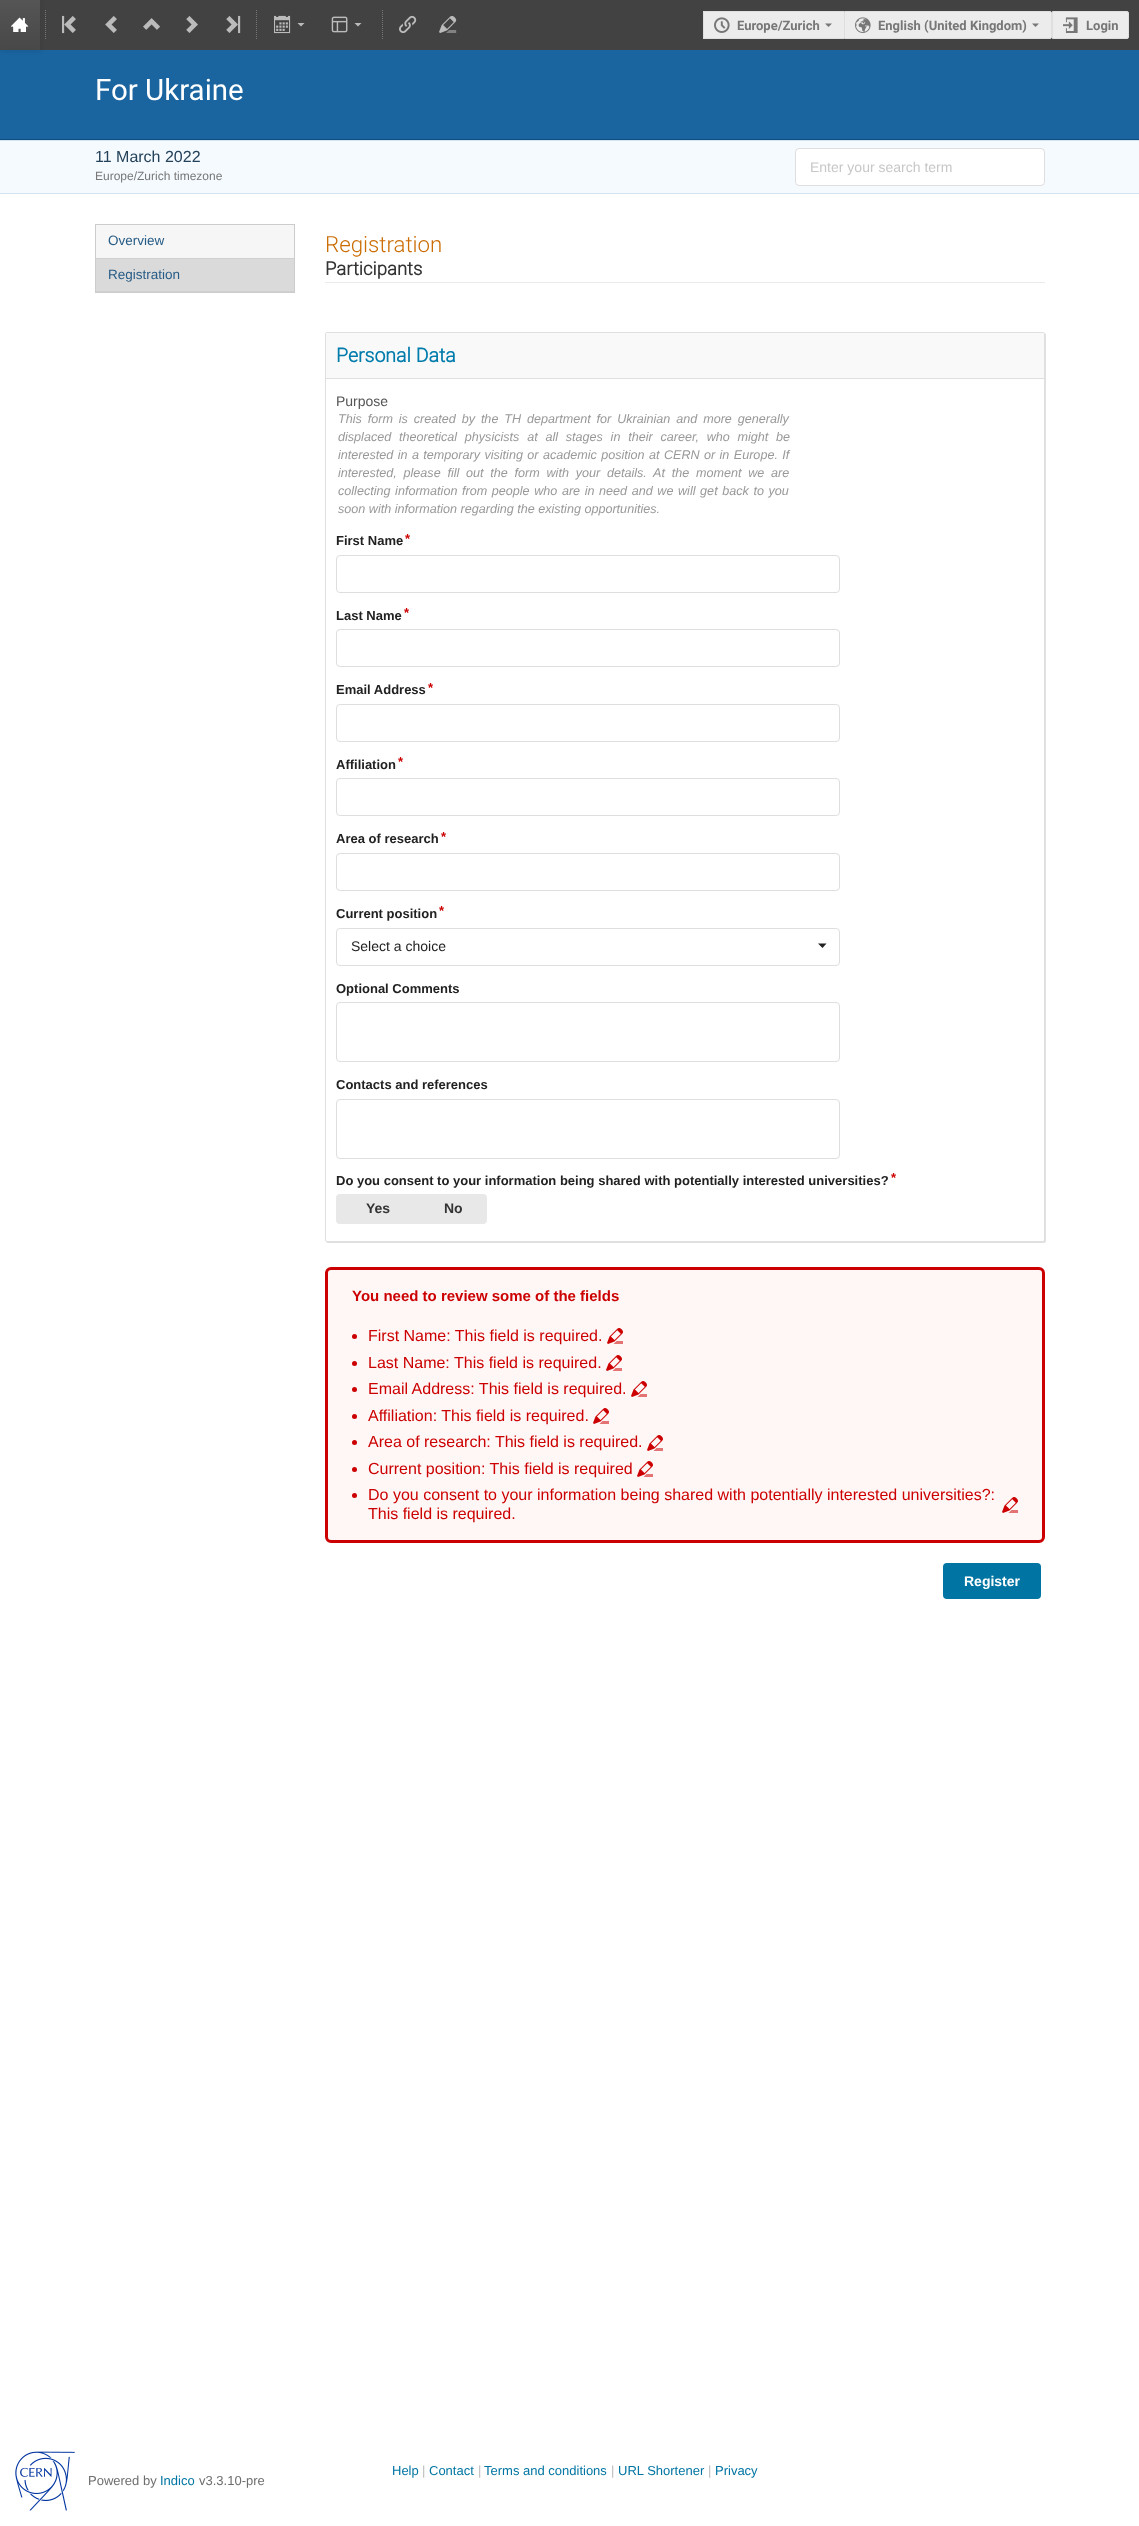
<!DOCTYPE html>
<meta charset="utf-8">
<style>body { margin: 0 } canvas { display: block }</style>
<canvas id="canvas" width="1139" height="2526"></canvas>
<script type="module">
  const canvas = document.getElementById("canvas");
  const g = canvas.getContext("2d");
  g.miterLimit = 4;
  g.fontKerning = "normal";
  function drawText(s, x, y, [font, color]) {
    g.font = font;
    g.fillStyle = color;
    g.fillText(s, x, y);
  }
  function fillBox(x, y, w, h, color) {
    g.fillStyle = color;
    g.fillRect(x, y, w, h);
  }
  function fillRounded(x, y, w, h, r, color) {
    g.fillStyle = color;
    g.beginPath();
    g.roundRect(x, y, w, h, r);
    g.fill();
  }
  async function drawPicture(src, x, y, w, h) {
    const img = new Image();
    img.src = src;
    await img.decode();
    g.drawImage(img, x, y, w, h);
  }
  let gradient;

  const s1 = ["bold 13px 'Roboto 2'", "#777777"];
  const s2 = ["29.5px Roboto", "#FFFFFF"];
  const s3 = ["16px 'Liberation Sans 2'", "#24425A"];
  const s4 = ["12px 'Liberation Sans 2'", "#777777"];
  const s5 = ["14px Liberation Sans", "#C7C7C7"];
  const s6 = ["13.5px Liberation Sans", "#275C86"];
  const s7 = ["300 22.25px Roboto", "#CB6D04"];
  const s8 = ["bold 18.5px Roboto", "#333333"];
  const s9 = ["bold 19.5px Roboto", "#007CAC"];
  const s10 = ["14px Liberation Sans", "#555555"];
  const s11 = ["italic 12.6px Liberation Sans", "#999999"];
  const s12 = ["bold 13px Liberation Sans", "#212121"];
  const s13 = ["bold 13px Liberation Sans", "#CC0000"];
  const s14 = ["14px Liberation Sans", "#212121"];
  const s15 = ["bold 14px Liberation Sans", "#333333"];
  const s16 = ["bold 15px Liberation Sans", "#CC0000"];
  const s17 = ["16px Liberation Sans", "#CC0000"];
  const s18 = ["bold 14px Liberation Sans", "#FFFFFF"];
  const s19 = ["13px 'Liberation Sans 2'", "#0075A3"];
  const s20 = ["13px 'Liberation Sans 2'", "#BBBBBB"];
  const s21 = ["13px 'Liberation Sans 2'", "#6E6E6E"];

  fillBox(0, 0, 1139, 2526, "#FFFFFF");
  fillBox(40, 0, 1099, 50, "#424242");
  fillBox(0, 50, 1139, 89, "#1A64A0");
  g.fillStyle = "rgba(20, 20, 20, 0.1)";
  g.filter = "blur(2px)";
  g.beginPath();
  g.rect(1, 1, 40, 50);
  g.fill();
  g.filter = "none";
  gradient = g.createLinearGradient(20, 0, 20, 50);
  gradient.addColorStop(0, "#555555");
  gradient.addColorStop(1, "#484848");
  g.fillStyle = gradient;
  g.fillRect(0, 0, 40, 50);
  await drawPicture("pic1.png", 11, 17, 18, 15);
  g.beginPath();
  g.moveTo(45.5, 10);
  g.lineTo(45.5, 40);
  g.strokeStyle = "#777777";
  g.setLineDash([1, 1]);
  g.stroke();
  await drawPicture("pic2.png", 62, 15, 14, 19);
  await drawPicture("pic3.png", 105, 16, 12, 17);
  await drawPicture("pic4.png", 143, 18, 17, 12);
  await drawPicture("pic5.png", 186, 16, 12, 17);
  await drawPicture("pic6.png", 226, 15, 15, 19);
  g.beginPath();
  g.moveTo(256.5, 10);
  g.lineTo(256.5, 40);
  g.stroke();
  await drawPicture("pic7.png", 274, 15, 17, 19);
  g.fillStyle = "#BBBBBB";
  g.beginPath();
  g.moveTo(297.5, 23);
  g.lineTo(301, 26.5);
  g.lineTo(304.5, 23);
  g.closePath();
  g.fill();
  await drawPicture("pic8.png", 331, 16, 17, 17);
  g.beginPath();
  g.moveTo(354.5, 23);
  g.lineTo(358, 26.5);
  g.lineTo(361.5, 23);
  g.closePath();
  g.fill();
  g.beginPath();
  g.moveTo(382.5, 10);
  g.lineTo(382.5, 40);
  g.stroke();
  await drawPicture("pic9.png", 399, 15, 18, 19);
  await drawPicture("pic10.png", 439, 16, 18, 17);
  fillBox(704, 12, 140, 26, "#ECECEC");
  fillBox(703, 11, 141, 1, "#DFDFDF");
  fillBox(703, 38, 141, 1, "#DFDFDF");
  fillBox(703, 11, 1, 28, "#DFDFDF");
  await drawPicture("pic11.png", 714, 17, 16, 16);
  drawText("Europe/Zurich", 737, 30, s1);
  g.beginPath();
  g.moveTo(825, 23.5);
  g.lineTo(828.5, 27);
  g.lineTo(832, 23.5);
  g.closePath();
  g.fill();
  g.fillStyle = "#ECECEC";
  g.beginPath();
  g.roundRect(844.5, 11.5, 207, 27, [0, 1.5, 1.5, 0]);
  g.fill();
  g.strokeStyle = "#DFDFDF";
  g.setLineDash([]);
  g.stroke();
  await drawPicture("pic12.png", 855, 17, 16, 16);
  drawText("English (United Kingdom)", 878, 30, s1);
  g.beginPath();
  g.moveTo(1032, 23.5);
  g.lineTo(1035.5, 27);
  g.lineTo(1039, 23.5);
  g.closePath();
  g.fill();
  g.fillStyle = "#ECECEC";
  g.beginPath();
  g.roundRect(1052.5, 11.5, 76, 27, [0, 1.5, 1.5, 0]);
  g.fill();
  g.stroke();
  await drawPicture("pic13.png", 1063, 17, 15, 16);
  drawText("Login", 1086, 30, s1);
  fillBox(0, 139, 1139, 1, "#0F4C80");
  drawText("For Ukraine", 95, 100, s2);
  fillBox(0, 141, 1139, 52, "#F5FAFF");
  fillBox(0, 140, 1139, 1, "#D5E4F1");
  fillBox(0, 193, 1139, 1, "#D5E4F1");
  drawText("11 March 2022", 95, 162, s3);
  drawText("Europe/Zurich timezone", 95, 180, s4);
  fillRounded(795, 148, 250, 38, 4, "#FFFFFF");
  g.beginPath();
  g.roundRect(795.5, 148.5, 249, 37, 3.5);
  g.strokeStyle = "rgba(34, 36, 38, 0.15)";
  g.stroke();
  drawText("Enter your search term", 810, 172, s5);
  fillBox(96, 225, 198, 33, "#F6F6F6");
  g.strokeStyle = "#CCCCCC";
  g.strokeRect(95.5, 224.5, 199, 68);
  drawText("Overview", 108, 245, s6);
  fillBox(96, 259, 198, 32, "#DADADA");
  fillBox(96, 258, 198, 1, "#D0D0D0");
  fillBox(96, 291, 198, 1, "#D0D0D0");
  drawText("Registration", 108, 279, s6);
  fillBox(325, 282, 720, 1, "#EBEBEB");
  drawText("Registration", 325, 252, s7);
  drawText("Participants", 325, 275, s8);
  g.fillStyle = "#E1E1E1";
  g.filter = "blur(0.5px)";
  g.beginPath();
  g.roundRect(326, 333, 720, 910, 2);
  g.fill();
  g.filter = "none";
  g.fillStyle = "#FFFFFF";
  g.beginPath();
  g.roundRect(325.5, 332.5, 719, 909, 1.5);
  g.fill();
  g.strokeStyle = "#DFDFDF";
  g.stroke();
  fillBox(326, 333, 718, 45, "#F9F9F9");
  fillBox(326, 378, 718, 1, "#DFDFDF");
  drawText("Personal Data", 336, 362, s9);
  drawText("Purpose", 336, 406, s10);
  g.wordSpacing = "2.4px";
  drawText("This form is created by the TH department for Ukrainian and more generally", 338, 423, s11);
  g.wordSpacing = "4.25px";
  drawText("displaced theoretical physicists at all stages in their career, who might be", 338, 441, s11);
  g.wordSpacing = "0.9px";
  drawText("interested in a temporary visiting or academic position at CERN or in Europe. If", 338, 459, s11);
  g.wordSpacing = "3.25px";
  drawText("interested, please fill out the form with your details. At the moment we are", 338, 477, s11);
  g.wordSpacing = "1.1px";
  drawText("collecting information from people who are in need and we will get back to you", 338, 495, s11);
  g.wordSpacing = "0px";
  drawText("soon with information regarding the existing opportunities.", 338, 513, s11);
  drawText("First Name", 336, 545, s12);
  drawText("*", 405, 543, s13);
  g.beginPath();
  g.roundRect(336.5, 555.5, 503, 37, 3.5);
  g.strokeStyle = "#DEDEDE";
  g.stroke();
  drawText("*", 404, 617, s13);
  drawText("Last Name", 336, 620, s12);
  g.beginPath();
  g.roundRect(336.5, 629.5, 503, 37, 3.5);
  g.stroke();
  drawText("Email Address", 336, 694, s12);
  drawText("*", 428, 692, s13);
  g.beginPath();
  g.roundRect(336.5, 704.5, 503, 37, 3.5);
  g.stroke();
  drawText("Affiliation", 336, 769, s12);
  drawText("*", 398, 766, s13);
  g.beginPath();
  g.roundRect(336.5, 778.5, 503, 37, 3.5);
  g.stroke();
  drawText("Area of research", 336, 843, s12);
  drawText("*", 441, 841, s13);
  g.beginPath();
  g.roundRect(336.5, 853.5, 503, 37, 3.5);
  g.stroke();
  drawText("Current position", 336, 918, s12);
  drawText("*", 439, 915, s13);
  g.beginPath();
  g.roundRect(336.5, 928.5, 503, 37, 3.5);
  g.stroke();
  drawText("Select a choice", 351, 951, s14);
  g.beginPath();
  g.moveTo(818, 943.5);
  g.lineTo(822.5, 948);
  g.lineTo(826.5, 943.5);
  g.closePath();
  g.fill();
  drawText("Optional Comments", 336, 993, s12);
  g.beginPath();
  g.roundRect(336.5, 1002.5, 503, 59, 3.5);
  g.stroke();
  drawText("Contacts and references", 336, 1089, s12);
  g.beginPath();
  g.roundRect(336.5, 1099.5, 503, 59, 3.5);
  g.stroke();
  drawText("Do you consent to your information being shared with potentially interested universities?", 336, 1185, s12);
  drawText("*", 891, 1182, s13);
  g.fillStyle = "#E8E8E8";
  g.beginPath();
  g.roundRect(336, 1194, 78, 30, [4, 0, 0, 4]);
  g.fill();
  drawText("Yes", 366, 1213, s15);
  g.fillStyle = "#E8E8E8";
  g.beginPath();
  g.roundRect(413, 1194, 74, 30, [0, 4, 4, 0]);
  g.fill();
  drawText("No", 444, 1213, s15);
  g.fillStyle = "#FFF6F6";
  g.beginPath();
  g.roundRect(326.5, 1268.5, 717, 273, 4.5);
  g.fill();
  g.strokeStyle = "#CC0000";
  g.lineWidth = 3;
  g.stroke();
  drawText("You need to review some of the fields", 352, 1301, s16);
  g.beginPath();
  g.arc(354.5, 1336.5, 2.5, 0, Math.PI * 2);
  g.fill();
  drawText("First Name: This field is required.", 368, 1341, s17);
  await drawPicture("pic14.png", 607, 1328, 16, 16);
  g.beginPath();
  g.arc(354.5, 1363.5, 2.5, 0, Math.PI * 2);
  g.fill();
  drawText("Last Name: This field is required.", 368, 1368, s17);
  await drawPicture("pic14.png", 606, 1355, 16, 16);
  g.beginPath();
  g.arc(354.5, 1389.5, 2.5, 0, Math.PI * 2);
  g.fill();
  drawText("Email Address: This field is required.", 368, 1394, s17);
  await drawPicture("pic14.png", 631, 1381, 16, 16);
  g.beginPath();
  g.arc(354.5, 1416.5, 2.5, 0, Math.PI * 2);
  g.fill();
  drawText("Affiliation: This field is required.", 368, 1421, s17);
  await drawPicture("pic14.png", 593, 1408, 16, 16);
  g.beginPath();
  g.arc(354.5, 1442.5, 2.5, 0, Math.PI * 2);
  g.fill();
  drawText("Area of research: This field is required.", 368, 1447, s17);
  await drawPicture("pic14.png", 647, 1435, 16, 16);
  g.beginPath();
  g.arc(354.5, 1469.5, 2.5, 0, Math.PI * 2);
  g.fill();
  drawText("Current position: This field is required", 368, 1474, s17);
  await drawPicture("pic14.png", 637, 1461, 16, 16);
  g.beginPath();
  g.arc(354.5, 1495.5, 2.5, 0, Math.PI * 2);
  g.fill();
  drawText("Do you consent to your information being shared with potentially interested universities?:", 368, 1500, s17);
  await drawPicture("pic14.png", 1002, 1497, 16, 16);
  drawText("This field is required.", 368, 1519, s17);
  fillRounded(943, 1563, 98, 36, 4, "#0075A3");
  drawText("Register", 964, 1586, s18);
  drawText("Help", 392, 2475, s19);
  drawText("|", 422, 2475, s20);
  drawText("Contact", 429, 2475, s19);
  drawText("|", 478, 2475, s20);
  drawText("Terms and conditions", 484, 2475, s19);
  drawText("|", 611, 2475, s20);
  drawText("URL Shortener", 618, 2475, s19);
  drawText("|", 708, 2475, s20);
  drawText("Privacy", 715, 2475, s19);
  await drawPicture("pic15.png", 15, 2451, 60, 60);
  drawText("Powered by", 88, 2485, s21);
  drawText("Indico", 160, 2485, s19);
  drawText("v3.3.10-pre", 199, 2485, s21);
</script>
